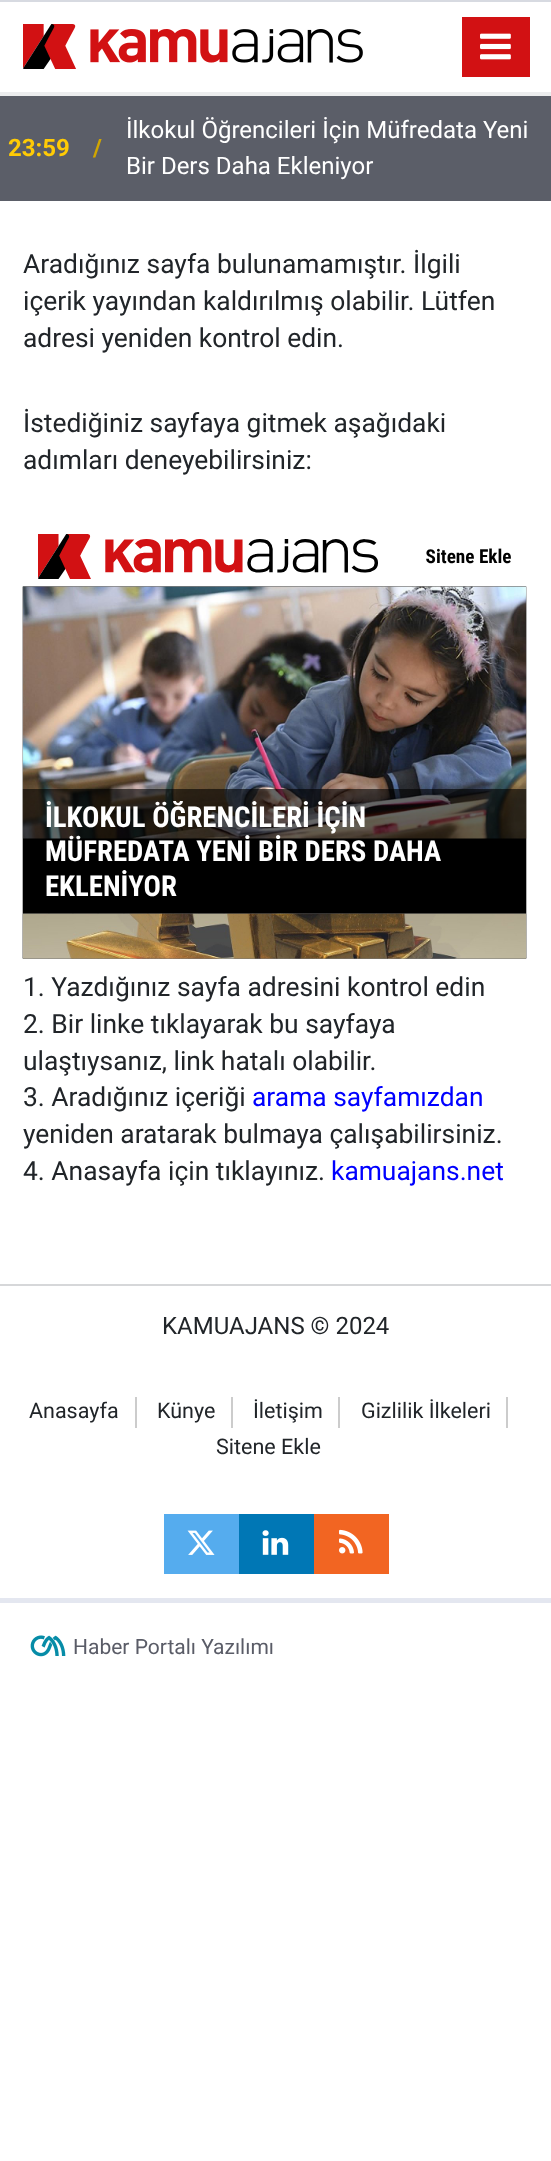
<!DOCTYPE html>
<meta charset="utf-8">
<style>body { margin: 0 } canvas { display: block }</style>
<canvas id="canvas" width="551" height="2161"></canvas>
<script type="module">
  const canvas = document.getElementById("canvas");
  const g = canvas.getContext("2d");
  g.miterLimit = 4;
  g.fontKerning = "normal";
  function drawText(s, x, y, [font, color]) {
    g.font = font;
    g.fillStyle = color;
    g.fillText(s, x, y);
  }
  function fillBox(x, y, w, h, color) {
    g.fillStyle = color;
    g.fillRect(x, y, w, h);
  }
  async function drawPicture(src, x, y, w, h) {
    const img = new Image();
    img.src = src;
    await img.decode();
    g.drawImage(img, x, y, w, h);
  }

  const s1 = ["bold 24px Roboto", "#FFCB05"];
  const s2 = ["bold 24px Roboto", "#D1A600"];
  const s3 = ["24px Roboto", "#FFFFFF"];
  const s4 = ["26.4px Roboto", "#212529"];
  const s5 = ["26.4px Roboto", "#0000FF"];
  const s6 = ["24px Roboto", "#212529"];
  const s7 = ["21.5px Roboto", "#212529"];
  const s8 = ["21px Roboto", "#5A5C67"];

  fillBox(0, 0, 551, 2161, "#FFFFFF");
  fillBox(0, 0, 551, 2, "#D7DAE1");
  fillBox(0, 92, 551, 4, "#ECEDEE");
  await drawPicture("pic1.png", 23, 24, 340, 45);
  fillBox(462, 17, 68, 60, "#D21113");
  await drawPicture("pic2.png", 480, 33, 31, 27);
  fillBox(0, 96, 551, 105, "#5B5E68");
  drawText("23:59", 8, 156, s1);
  drawText("/", 93, 156, s2);
  drawText("İlkokul Öğrencileri İçin Müfredata Yeni", 126, 138, s3);
  drawText("Bir Ders Daha Ekleniyor", 126, 174, s3);
  drawText("Aradığınız sayfa bulunamamıştır. İlgili", 23, 273, s4);
  drawText("içerik yayından kaldırılmış olabilir. Lütfen", 23, 310, s4);
  drawText("adresi yeniden kontrol edin.", 23, 347, s4);
  drawText("İstediğiniz sayfaya gitmek aşağıdaki", 23, 432, s4);
  drawText("adımları deneyebilirsiniz:", 23, 469, s4);
  await drawPicture("pic3.png", 22, 534, 505, 425);
  drawText("1. Yazdığınız sayfa adresini kontrol edin", 23, 996, s4);
  drawText("2. Bir linke tıklayarak bu sayfaya", 23, 1033, s4);
  drawText("ulaştıysanız, link hatalı olabilir.", 23, 1070, s4);
  drawText("3. Aradığınız içeriği", 23, 1106, s4);
  drawText("arama sayfamızdan", 252, 1106, s5);
  drawText("yeniden aratarak bulmaya çalışabilirsiniz.", 23, 1143, s4);
  drawText("4. Anasayfa için tıklayınız.", 23, 1180, s4);
  drawText("kamuajans.net", 331, 1180, s5);
  fillBox(0, 1284, 551, 2, "#D6D7D9");
  fillBox(0, 1598, 551, 5, "#E4E7F0");
  drawText("KAMUAJANS © 2024", 162, 1334, s6);
  fillBox(135, 1397, 2, 31, "#CCCCCC");
  drawText("Anasayfa", 29, 1418, s7);
  fillBox(231, 1397, 2, 31, "#CCCCCC");
  drawText("Künye", 157, 1418, s7);
  fillBox(338, 1397, 2, 31, "#CCCCCC");
  drawText("İletişim", 253, 1418, s7);
  fillBox(506, 1397, 2, 31, "#CCCCCC");
  drawText("Gizlilik İlkeleri", 361, 1418, s7);
  drawText("Sitene Ekle", 216, 1454, s7);
  fillBox(164, 1514, 75, 60, "#55ACEE");
  await drawPicture("pic4.png", 187, 1530, 28, 25);
  fillBox(239, 1514, 75, 60, "#0077B5");
  await drawPicture("pic5.png", 262, 1530, 27, 25);
  fillBox(314, 1514, 75, 60, "#F26522");
  await drawPicture("pic6.png", 339, 1529, 24, 25);
  await drawPicture("pic7.png", 30, 1635, 36, 22);
  drawText("Haber Portalı Yazılımı", 73, 1654, s8);
</script>
